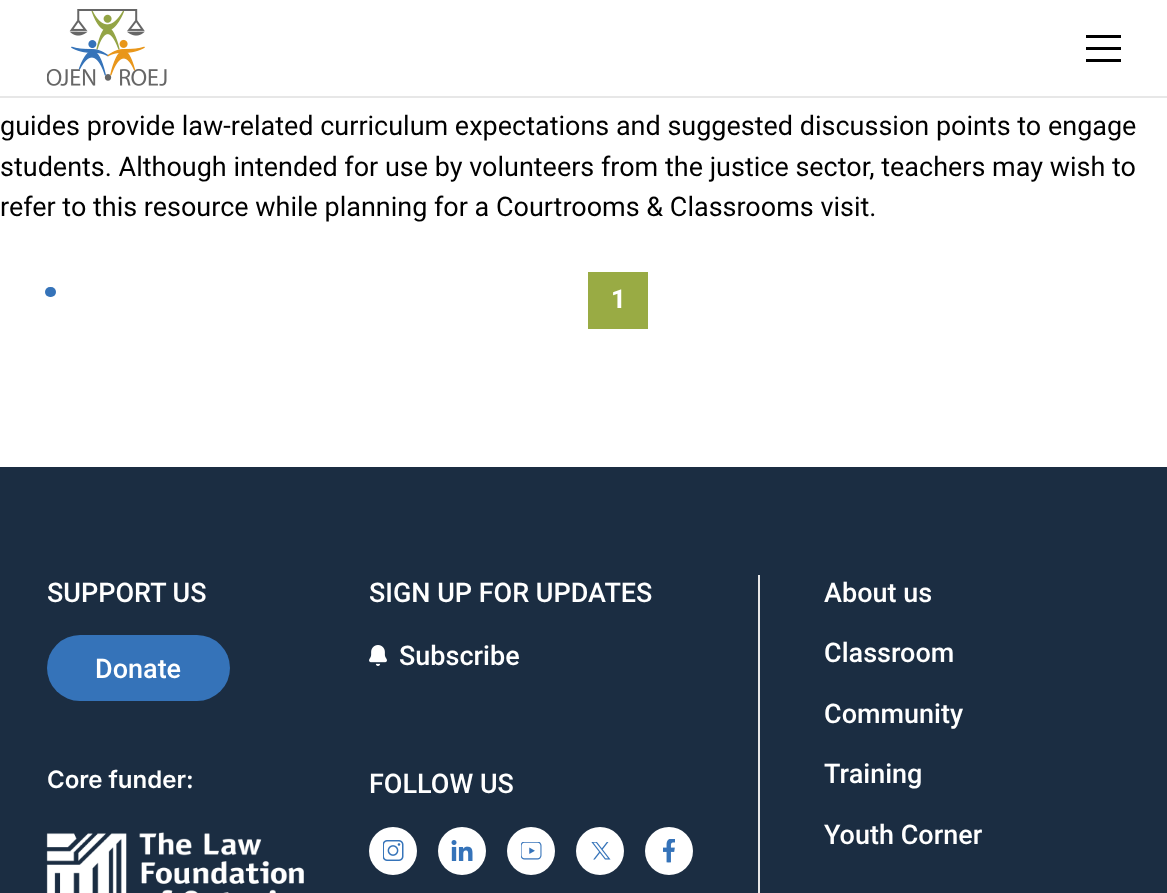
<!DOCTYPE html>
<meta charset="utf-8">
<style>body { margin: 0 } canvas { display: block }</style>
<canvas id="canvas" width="1167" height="893"></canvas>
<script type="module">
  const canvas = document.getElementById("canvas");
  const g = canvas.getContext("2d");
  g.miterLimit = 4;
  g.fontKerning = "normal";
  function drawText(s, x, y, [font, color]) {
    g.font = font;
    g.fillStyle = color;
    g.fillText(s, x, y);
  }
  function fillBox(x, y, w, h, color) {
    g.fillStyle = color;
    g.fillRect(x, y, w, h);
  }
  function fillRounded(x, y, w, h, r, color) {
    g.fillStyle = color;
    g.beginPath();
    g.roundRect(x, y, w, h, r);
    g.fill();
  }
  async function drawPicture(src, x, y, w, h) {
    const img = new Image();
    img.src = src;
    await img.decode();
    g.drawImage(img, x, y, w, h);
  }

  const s1 = ["27px Roboto", "#000000"];
  const s2 = ["bold 26px Roboto", "#FFFFFF"];
  const s3 = ["500 27px Roboto", "#FFFFFF"];
  const s4 = ["600 24px Inter", "#FFFFFF"];

  fillBox(0, 0, 1167, 893, "#FFFFFF");
  fillBox(0, 96, 1167, 2, "#E7E7E7");
  await drawPicture("pic1.png", 47, 9, 120, 77);
  fillBox(1086, 35, 35, 3, "#000000");
  fillBox(1086, 47, 35, 3, "#000000");
  fillBox(1086, 59, 35, 3, "#000000");
  drawText("guides provide law-related curriculum expectations and suggested discussion points to engage", 0, 135, s1);
  drawText("students. Although intended for use by volunteers from the justice sector, teachers may wish to", 0, 176, s1);
  drawText("refer to this resource while planning for a Courtrooms & Classrooms visit.", 0, 216, s1);
  fillRounded(45, 287, 11, 10, 5, "#3573B9");
  fillBox(588, 272, 60, 57, "#99AB44");
  drawText("1", 611, 308, s2);
  fillBox(0, 467, 1167, 426, "#1B2D42");
  drawText("SUPPORT US", 47, 602, s3);
  fillRounded(47, 635, 183, 66, 33, "#3573B9");
  drawText("Donate", 95, 678, s3);
  drawText("SIGN UP FOR UPDATES", 369, 602, s3);
  await drawPicture("pic2.png", 369, 645, 18, 21);
  drawText("Subscribe", 399, 665, s3);
  drawText("Core funder:", 47, 788, s4);
  await drawPicture("pic3.png", 46, 832, 258, 61);
  drawText("FOLLOW US", 369, 793, s3);
  g.beginPath();
  g.arc(393, 851, 24, 0, Math.PI * 2);
  g.fill();
  await drawPicture("pic4.png", 383, 840, 21, 21);
  g.beginPath();
  g.arc(462, 851, 24, 0, Math.PI * 2);
  g.fill();
  await drawPicture("pic5.png", 451, 840, 22, 21);
  g.beginPath();
  g.arc(531, 851, 24, 0, Math.PI * 2);
  g.fill();
  await drawPicture("pic6.png", 521, 842, 21, 18);
  g.beginPath();
  g.arc(600, 851, 24, 0, Math.PI * 2);
  g.fill();
  await drawPicture("pic7.png", 591, 842, 20, 18);
  g.beginPath();
  g.arc(669, 851, 24, 0, Math.PI * 2);
  g.fill();
  await drawPicture("pic8.png", 663, 839, 12, 24);
  fillBox(758, 575, 2, 318, "#E7E7E7");
  drawText("About us", 824, 602, s3);
  drawText("Classroom", 824, 662, s3);
  drawText("Community", 824, 723, s3);
  drawText("Training", 824, 783, s3);
  drawText("Youth Corner", 824, 844, s3);
</script>
